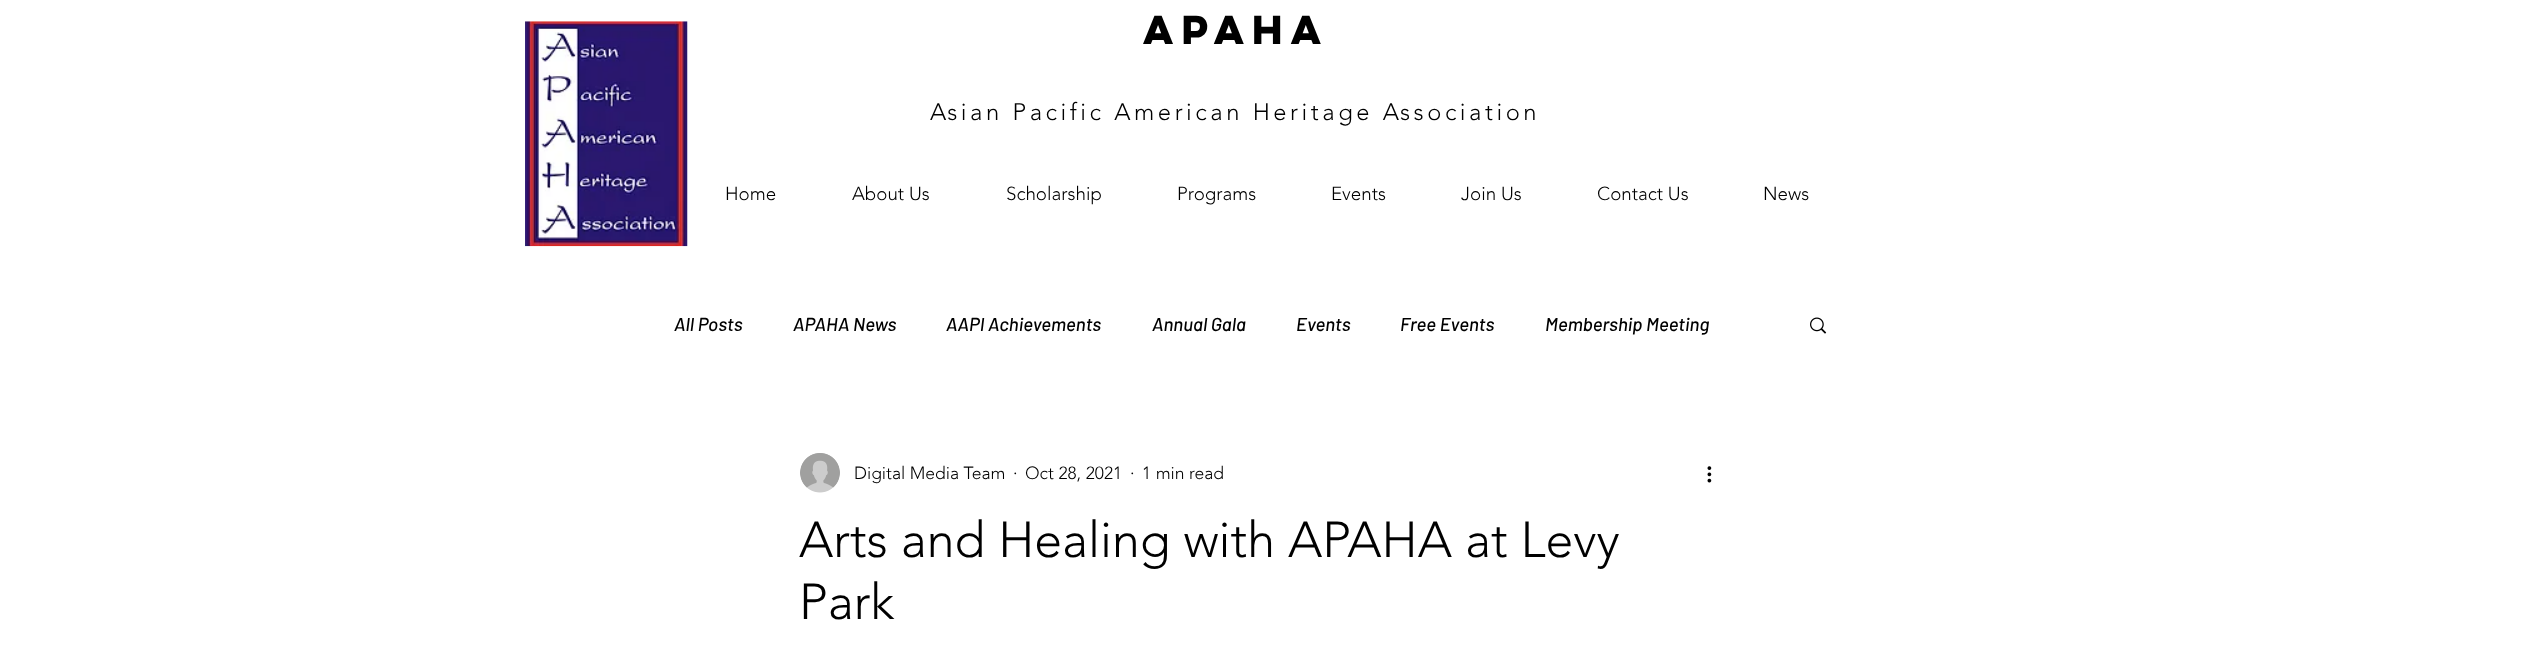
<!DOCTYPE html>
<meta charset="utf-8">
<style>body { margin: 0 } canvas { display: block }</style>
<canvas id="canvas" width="2523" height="661"></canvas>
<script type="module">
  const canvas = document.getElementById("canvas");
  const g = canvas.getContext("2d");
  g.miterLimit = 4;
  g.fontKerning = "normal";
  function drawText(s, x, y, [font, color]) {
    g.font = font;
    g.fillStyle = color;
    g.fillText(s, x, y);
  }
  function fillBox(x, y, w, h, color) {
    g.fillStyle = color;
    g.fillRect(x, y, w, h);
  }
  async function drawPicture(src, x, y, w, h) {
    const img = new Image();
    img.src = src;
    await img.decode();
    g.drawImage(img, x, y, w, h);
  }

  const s1 = ["bold 36.25px 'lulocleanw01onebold'", "#000000"];
  const s2 = ["300 23.75px 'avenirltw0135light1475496'", "#000000"];
  const s3 = ["300 18.75px 'avenirltw0135light1475496'", "#000000"];
  const s4 = ["italic 500 18.75px Barlow", "#000000"];
  const s5 = ["300 17.5px 'avenirltw0135light1475496'", "#000000"];
  const s6 = ["300 50px 'avenirltw0135light1475496'", "#000000"];

  fillBox(0, 0, 2523, 661, "#FFFFFF");
  await drawPicture("pic1.png", 525, 21, 163, 226);
  drawText("APAHA", 1143, 44, s1);
  g.letterSpacing = "3.55px";
  drawText("Asian Pacific American Heritage Association", 930, 120, s2);
  g.letterSpacing = "0px";
  drawText("Home", 725, 200, s3);
  drawText("About Us", 852, 200, s3);
  drawText("Scholarship", 1006, 200, s3);
  drawText("Programs", 1177, 200, s3);
  drawText("Events", 1331, 200, s3);
  drawText("Join Us", 1461, 200, s3);
  drawText("Contact Us", 1597, 200, s3);
  drawText("News", 1763, 200, s3);
  drawText("All Posts", 674, 331, s4);
  drawText("APAHA News", 793, 331, s4);
  drawText("AAPI Achievements", 946, 331, s4);
  drawText("Annual Gala", 1152, 331, s4);
  drawText("Events", 1296, 331, s4);
  drawText("Free Events", 1400, 331, s4);
  drawText("Membership Meeting", 1545, 331, s4);
  await drawPicture("pic2.png", 1810, 317, 17, 17);
  await drawPicture("pic3.png", 800, 453, 40, 40);
  drawText("Digital Media Team", 854, 479, s5);
  drawText("·", 1013, 479, s5);
  drawText("Oct 28, 2021", 1025, 479, s5);
  drawText("·", 1130, 479, s5);
  drawText("1 min read", 1142, 479, s5);
  await drawPicture("pic4.png", 1707, 466, 5, 17);
  drawText("Arts and Healing with APAHA at Levy", 799, 557, s6);
  drawText("Park", 799, 619, s6);
</script>
